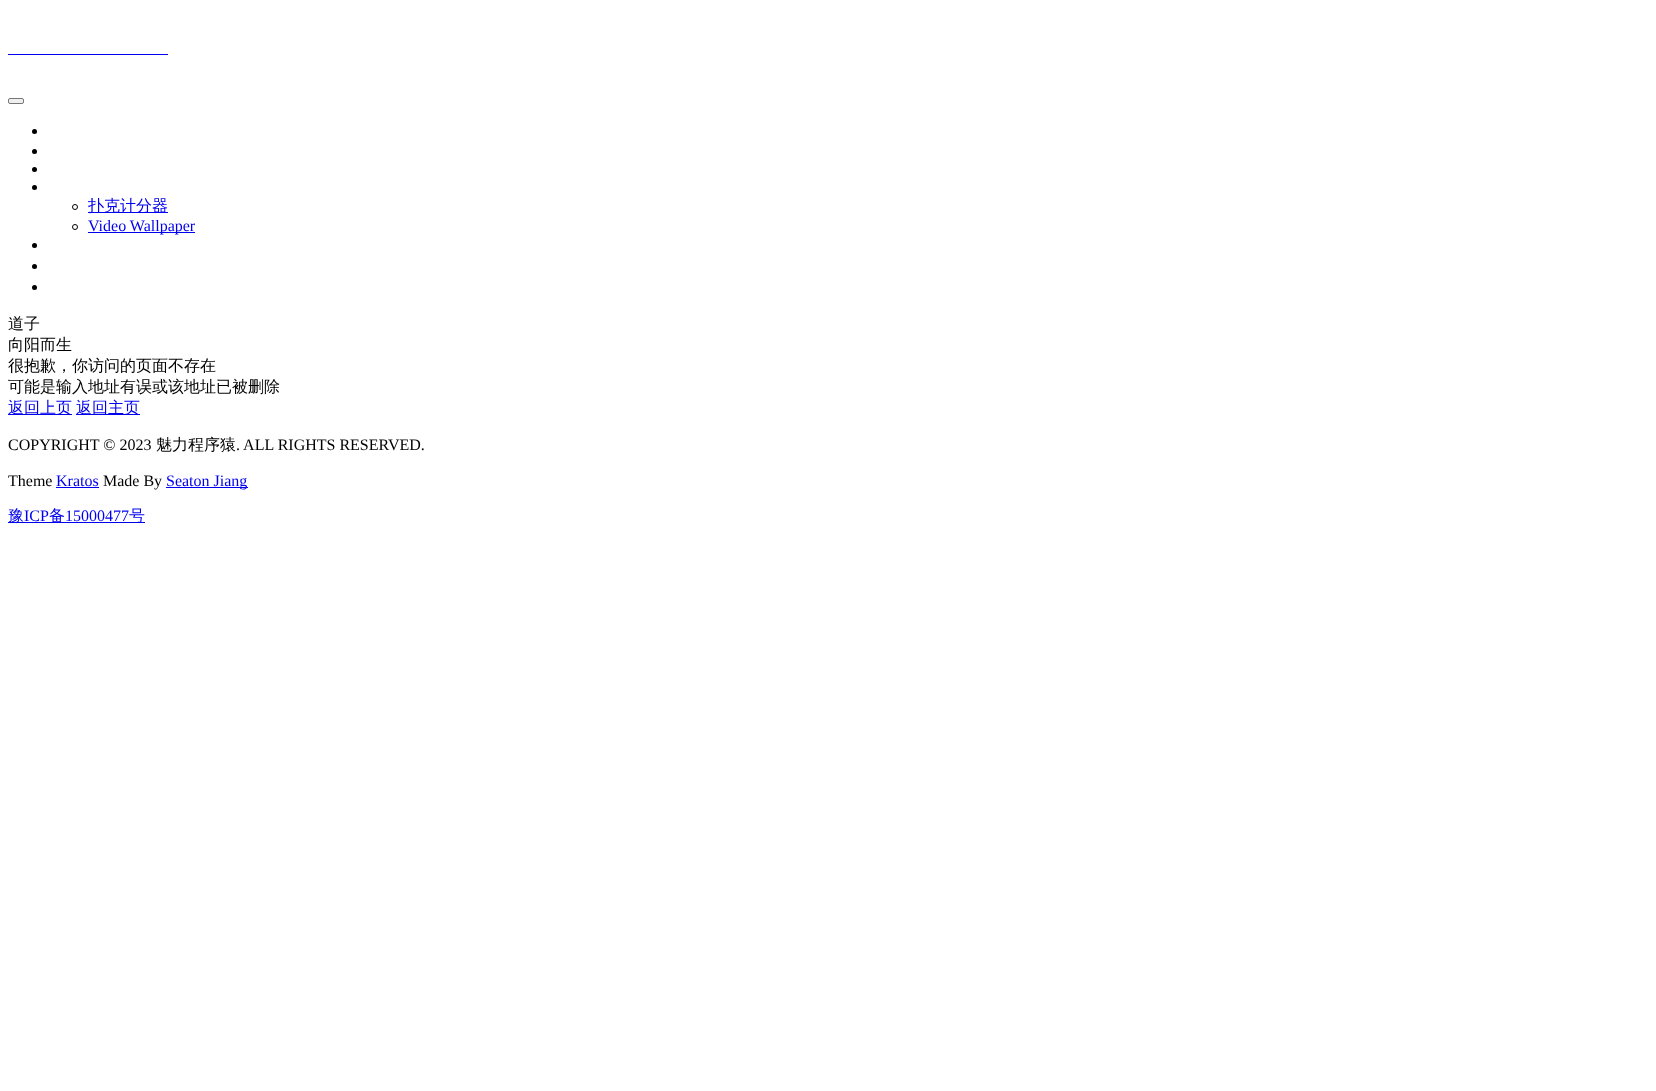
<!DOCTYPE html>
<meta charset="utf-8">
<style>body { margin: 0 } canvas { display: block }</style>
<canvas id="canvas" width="1656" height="1091"></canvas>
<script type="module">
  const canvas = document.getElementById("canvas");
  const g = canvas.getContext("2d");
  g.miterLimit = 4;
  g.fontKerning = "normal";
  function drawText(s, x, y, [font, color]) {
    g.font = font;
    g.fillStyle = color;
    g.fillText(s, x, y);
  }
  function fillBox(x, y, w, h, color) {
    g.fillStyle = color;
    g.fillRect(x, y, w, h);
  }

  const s1 = ["500 16px WenQuanYi Zen Hei", "#0000EE"];
  const s2 = ["16px Liberation Serif", "#0000EE"];
  const s3 = ["500 16px WenQuanYi Zen Hei", "#000000"];
  const s4 = ["16px Liberation Serif", "#000000"];

  fillBox(0, 0, 1656, 1091, "#FFFFFF");
  fillBox(8, 54, 160, 1, "#0000EE");
  g.fillStyle = "#EFEFEF";
  g.beginPath();
  g.roundRect(8.5, 98.5, 15, 5, 1.5);
  g.fill();
  g.strokeStyle = "#767676";
  g.stroke();
  g.fillStyle = "#000000";
  g.beginPath();
  g.arc(34.5, 131.5, 2.5, 0, Math.PI * 2);
  g.fill();
  g.beginPath();
  g.arc(34.5, 151.5, 2.5, 0, Math.PI * 2);
  g.fill();
  g.beginPath();
  g.arc(34.5, 169.5, 2.5, 0, Math.PI * 2);
  g.fill();
  g.beginPath();
  g.arc(34.5, 187.5, 2.5, 0, Math.PI * 2);
  g.fill();
  g.beginPath();
  g.arc(75, 207, 2.5, 0, Math.PI * 2);
  g.strokeStyle = "#000000";
  g.stroke();
  fillBox(88, 212, 80, 1, "#0000EE");
  drawText("扑克计分器", 88, 211, s1);
  g.beginPath();
  g.arc(75, 227, 2.5, 0, Math.PI * 2);
  g.stroke();
  fillBox(88, 232, 107, 1, "#0000EE");
  drawText("Video Wallpaper", 88, 231, s2);
  g.fillStyle = "#000000";
  g.beginPath();
  g.arc(34.5, 245.5, 2.5, 0, Math.PI * 2);
  g.fill();
  g.beginPath();
  g.arc(34.5, 266.5, 2.5, 0, Math.PI * 2);
  g.fill();
  g.beginPath();
  g.arc(34.5, 287.5, 2.5, 0, Math.PI * 2);
  g.fill();
  drawText("道子", 8, 329, s3);
  drawText("向阳而生", 8, 350, s3);
  drawText("很抱歉，你访问的页面不存在", 8, 371, s3);
  drawText("可能是输入地址有误或该地址已被删除", 8, 392, s3);
  fillBox(8, 414, 64, 1, "#0000EE");
  drawText("返回上页", 8, 413, s1);
  fillBox(76, 414, 64, 1, "#0000EE");
  drawText("返回主页", 76, 413, s1);
  drawText("COPYRIGHT © 2023", 8, 450, s4);
  drawText("魅力程序猿", 156, 450, s3);
  drawText(". ALL RIGHTS RESERVED.", 236, 450, s4);
  drawText("Theme", 8, 486, s4);
  drawText("Kratos", 56, 486, s2);
  fillBox(56, 487, 43, 1, "#0000EE");
  drawText("Made By", 103, 486, s4);
  fillBox(166, 487, 82, 1, "#0000EE");
  drawText("Seaton Jiang", 166, 486, s2);
  fillBox(8, 522, 137, 1, "#0000EE");
  drawText("豫", 8, 521, s1);
  drawText("ICP", 24, 521, s2);
  drawText("备", 49, 521, s1);
  drawText("15000477", 65, 521, s2);
  drawText("号", 129, 521, s1);
</script>
